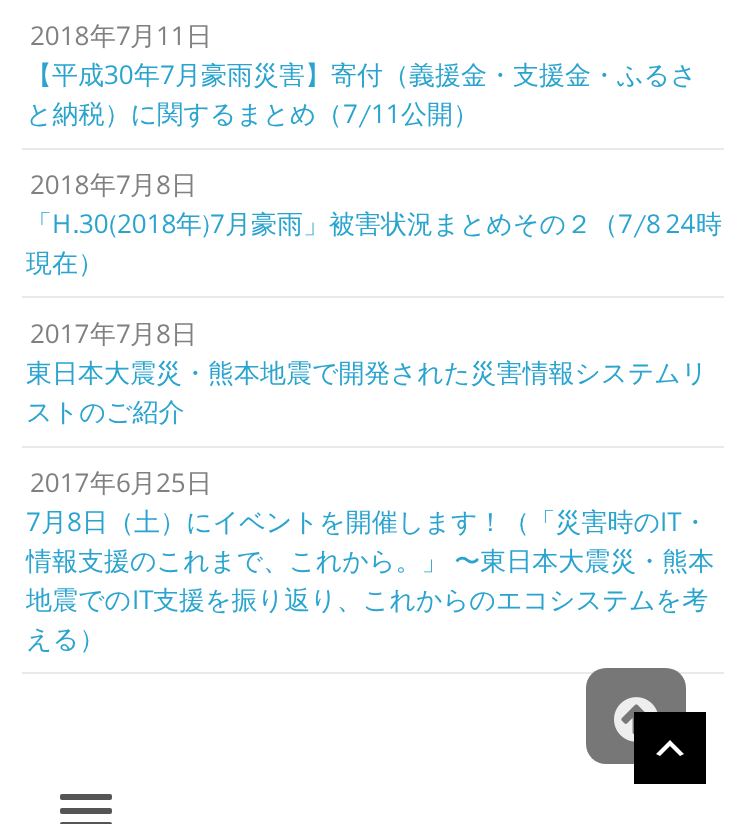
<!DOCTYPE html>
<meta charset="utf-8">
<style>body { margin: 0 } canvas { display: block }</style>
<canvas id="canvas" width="745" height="824"></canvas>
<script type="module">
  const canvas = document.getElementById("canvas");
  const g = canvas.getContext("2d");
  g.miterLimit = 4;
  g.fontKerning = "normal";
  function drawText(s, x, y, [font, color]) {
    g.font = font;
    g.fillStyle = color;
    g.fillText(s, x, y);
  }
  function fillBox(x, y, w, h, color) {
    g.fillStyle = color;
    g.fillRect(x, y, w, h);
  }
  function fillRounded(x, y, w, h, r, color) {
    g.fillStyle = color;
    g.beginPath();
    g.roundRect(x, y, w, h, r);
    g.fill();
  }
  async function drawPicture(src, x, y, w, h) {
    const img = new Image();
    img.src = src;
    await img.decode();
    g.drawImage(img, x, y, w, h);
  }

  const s1 = ["26px Open Sans", "#808080"];
  const s2 = ["500 26px WenQuanYi Zen Hei", "#808080"];
  const s3 = ["500 26px WenQuanYi Zen Hei", "#2AA4CF"];
  const s4 = ["26px Open Sans", "#2AA4CF"];

  fillBox(0, 0, 745, 824, "#FFFFFF");
  drawText("2018", 30, 45, s1);
  drawText("年", 90, 45, s2);
  drawText("7", 116, 45, s1);
  drawText("月", 130, 45, s2);
  drawText("11", 156, 45, s1);
  drawText("日", 186, 45, s2);
  drawText("【平成", 26, 84, s3);
  drawText("30", 104, 84, s4);
  drawText("年", 134, 84, s3);
  drawText("7", 160, 84, s4);
  drawText("月豪雨災害】寄付（義援金・支援金・ふるさ", 175, 84, s3);
  drawText("と納税）に関するまとめ（", 26, 123, s3);
  drawText("7", 343, 123, s4);
  drawText("/", 358, 123, s3);
  drawText("11", 371, 123, s4);
  drawText("公開）", 401, 123, s3);
  fillBox(22, 148, 702, 2, "#E9E9E9");
  drawText("2018", 30, 194, s1);
  drawText("年", 90, 194, s2);
  drawText("7", 116, 194, s1);
  drawText("月", 130, 194, s2);
  drawText("8", 156, 194, s1);
  drawText("日", 171, 194, s2);
  drawText("「", 26, 233, s3);
  drawText("H", 52, 233, s4);
  drawText(".", 72, 233, s3);
  drawText("30", 79, 233, s4);
  drawText("(", 109, 233, s3);
  drawText("2018", 117, 233, s4);
  drawText("年)", 176, 233, s3);
  drawText("7", 210, 233, s4);
  drawText("月豪雨」被害状況まとめその２（", 225, 233, s3);
  drawText("7", 618, 233, s4);
  drawText("/", 633, 233, s3);
  g.wordSpacing = "-2px";
  drawText("8 24", 646, 233, s4);
  g.wordSpacing = "0px";
  drawText("時", 696, 233, s3);
  drawText("現在）", 26, 272, s3);
  fillBox(22, 296, 702, 2, "#E9E9E9");
  drawText("2017", 30, 343, s1);
  drawText("年", 90, 343, s2);
  drawText("7", 116, 343, s1);
  drawText("月", 130, 343, s2);
  drawText("8", 156, 343, s1);
  drawText("日", 171, 343, s2);
  drawText("東日本大震災・熊本地震で開発された災害情報システムリ", 26, 382, s3);
  drawText("ストのご紹介", 26, 421, s3);
  fillBox(22, 446, 702, 2, "#E9E9E9");
  drawText("2017", 30, 492, s1);
  drawText("年", 90, 492, s2);
  drawText("6", 116, 492, s1);
  drawText("月", 130, 492, s2);
  drawText("25", 156, 492, s1);
  drawText("日", 186, 492, s2);
  drawText("7", 26, 531, s4);
  drawText("月", 41, 531, s3);
  drawText("8", 67, 531, s4);
  drawText("日（土）にイベントを開催します！（「災害時の", 82, 531, s3);
  drawText("IT", 660, 531, s4);
  drawText("・", 682, 531, s3);
  g.wordSpacing = "-1px";
  drawText("情報支援のこれまで、これから。」 〜東日本大震災・熊本", 26, 570, s3);
  g.wordSpacing = "0px";
  drawText("地震での", 26, 609, s3);
  drawText("IT", 132, 609, s4);
  drawText("支援を振り返り、これからのエコシステムを考", 153, 609, s3);
  drawText("える）", 26, 648, s3);
  fillBox(22, 672, 702, 2, "#E9E9E9");
  fillRounded(60, 794, 52, 6, 2, "#555555");
  fillRounded(60, 808, 52, 6, 2, "#555555");
  fillRounded(60, 822, 52, 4, 2, "#555555");
  fillRounded(586, 668, 100, 96, 20, "#777777");
  await drawPicture("pic1.png", 614, 697, 44, 45);
  fillBox(634, 712, 72, 72, "#000000");
  g.fillStyle = "#FFFFFF";
  g.beginPath();
  g.moveTo(680, 756);
  g.lineTo(670, 746);
  g.lineTo(660, 756);
  g.lineTo(656, 754);
  g.lineTo(670, 740);
  g.lineTo(684, 754);
  g.closePath();
  g.fill();
</script>
